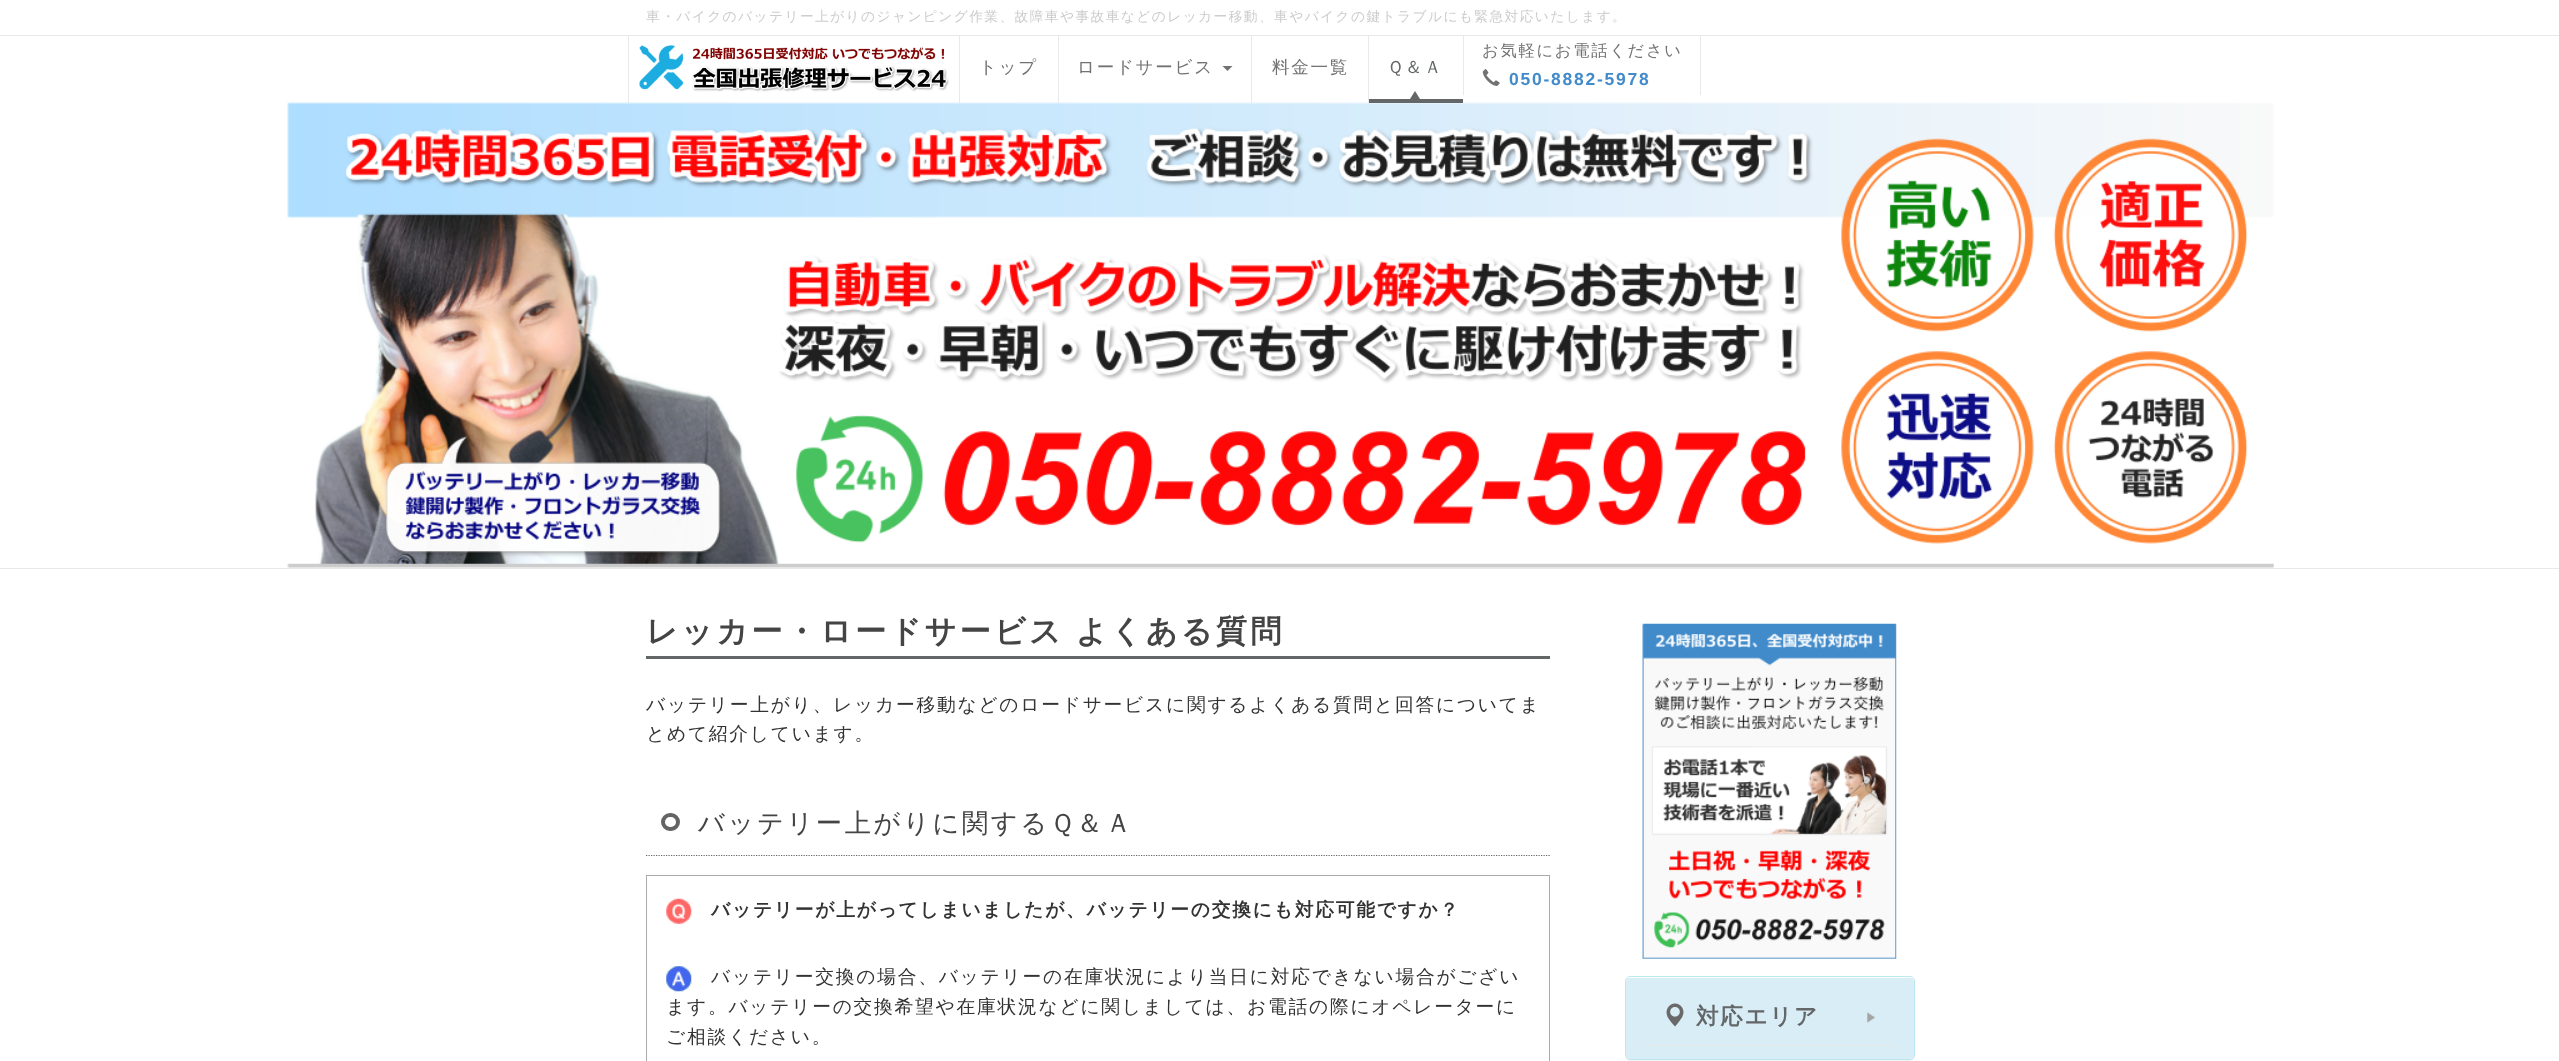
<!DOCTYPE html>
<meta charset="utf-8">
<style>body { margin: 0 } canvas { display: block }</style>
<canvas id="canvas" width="2559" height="1061"></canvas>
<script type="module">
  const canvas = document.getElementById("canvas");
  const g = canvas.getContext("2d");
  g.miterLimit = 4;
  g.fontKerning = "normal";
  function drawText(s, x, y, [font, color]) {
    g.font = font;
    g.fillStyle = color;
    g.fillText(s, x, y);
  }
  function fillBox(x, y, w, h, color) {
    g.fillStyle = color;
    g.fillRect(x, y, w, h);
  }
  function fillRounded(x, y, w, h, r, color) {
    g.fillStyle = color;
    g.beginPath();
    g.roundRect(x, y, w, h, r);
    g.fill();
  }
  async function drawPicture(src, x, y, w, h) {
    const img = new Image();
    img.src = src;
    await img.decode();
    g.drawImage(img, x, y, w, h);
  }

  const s1 = ["500 13.75px WenQuanYi Zen Hei", "#CCCCCC"];
  const s2 = ["500 17.5px WenQuanYi Zen Hei", "#737272"];
  const s3 = ["500 17.5px WenQuanYi Zen Hei", "#646768"];
  const s4 = ["500 16.25px WenQuanYi Zen Hei", "#737272"];
  const s5 = ["bold 17.5px Liberation Sans", "#428BCA"];
  const s6 = ["bold 31.25px WenQuanYi Zen Hei", "#444444"];
  const s7 = ["500 18.75px WenQuanYi Zen Hei", "#333333"];
  const s8 = ["500 26.25px WenQuanYi Zen Hei", "#444444"];
  const s9 = ["bold 18.75px WenQuanYi Zen Hei", "#333333"];
  const s10 = ["bold 22.5px WenQuanYi Zen Hei", "#646768"];

  fillBox(0, 0, 2559, 1061, "#FFFFFF");
  fillBox(0, 35, 2559, 1, "#E9E9E9");
  g.letterSpacing = "1.38px";
  drawText("車・バイクのバッテリー上がりのジャンピング作業、故障車や事故車などのレッカー移動、車やバイクの鍵トラブルにも緊急対応いたします。", 646, 21, s1);
  await drawPicture("pic1.png", 639, 45, 310, 47);
  fillBox(628, 36, 1, 67, "#E9E9E9");
  await drawPicture("pic3.png", 287, 102, 1987, 466);
  fillBox(959, 36, 1, 67, "#E9E9E9");
  g.letterSpacing = "1.75px";
  drawText("トップ", 979, 73, s2);
  fillBox(1058, 36, 1, 67, "#E9E9E9");
  drawText("ロードサービス", 1077, 73, s2);
  g.beginPath();
  g.moveTo(1222.5, 66);
  g.lineTo(1232.5, 66);
  g.lineTo(1227.5, 71);
  g.closePath();
  g.fill();
  fillBox(1251, 36, 1, 67, "#E9E9E9");
  drawText("料金一覧", 1272, 73, s2);
  fillBox(1368, 36, 1, 67, "#E9E9E9");
  fillBox(1369, 99, 94, 4, "#646768");
  drawText("Ｑ＆Ａ", 1387, 73, s3);
  g.beginPath();
  g.moveTo(1420, 99);
  g.lineTo(1410, 99);
  g.lineTo(1415, 91);
  g.closePath();
  g.fill();
  fillBox(1700, 36, 1, 59, "#E9E9E9");
  fillBox(1463, 36, 1, 59, "#E9E9E9");
  drawText("お気軽にお電話ください", 1482, 56, s4);
  await drawPicture("pic2.png", 1482, 69, 18, 17);
  drawText("050-8882-5978", 1509, 85, s5);
  fillBox(0, 568, 2559, 1, "#E9E9E9");
  fillBox(646, 656, 904, 3, "#646768");
  g.letterSpacing = "3.1px";
  g.wordSpacing = "-1px";
  drawText("レッカー・ロードサービス よくある質問", 646, 642, s6);
  g.letterSpacing = "1.75px";
  g.wordSpacing = "0px";
  drawText("バッテリー上がり、レッカー移動などのロードサービスに関するよくある質問と回答についてま", 646, 711, s7);
  drawText("とめて紹介しています。", 646, 740, s7);
  g.beginPath();
  g.moveTo(646, 855.5);
  g.lineTo(1550, 855.5);
  g.strokeStyle = "#646768";
  g.lineWidth = 1.2;
  g.setLineDash([1.25, 1.25]);
  g.stroke();
  g.beginPath();
  g.roundRect(663, 815, 15, 14, 7);
  g.strokeStyle = "#646464";
  g.lineWidth = 4;
  g.setLineDash([]);
  g.stroke();
  g.letterSpacing = "2.6px";
  drawText("バッテリー上がりに関するＱ＆Ａ", 698, 832, s8);
  g.strokeStyle = "#AAAAAA";
  g.lineWidth = 1;
  g.strokeRect(646.5, 875.5, 903, 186);
  await drawPicture("pic4.png", 666, 898, 26, 26);
  g.letterSpacing = "1.75px";
  drawText("バッテリーが上がってしまいましたが、バッテリーの交換にも対応可能ですか？", 711, 916, s9);
  await drawPicture("pic5.png", 666, 966, 26, 26);
  drawText("バッテリー交換の場合、バッテリーの在庫状況により当日に対応できない場合がござい", 711, 983, s7);
  drawText("ます。バッテリーの交換希望や在庫状況などに関しましては、お電話の際にオペレーターに", 666, 1013, s7);
  drawText("ご相談ください。", 666, 1043, s7);
  await drawPicture("pic6.png", 1642, 623, 255, 336);
  g.fillStyle = "rgba(0, 0, 0, 0.05)";
  g.filter = "blur(0.5px)";
  g.beginPath();
  g.roundRect(1625, 978, 290, 83, 5);
  g.fill();
  g.filter = "none";
  g.fillStyle = "#FFFFFF";
  g.beginPath();
  g.roundRect(1625.5, 976.5, 289, 83, 4.5);
  g.fill();
  g.strokeStyle = "#BCE8F1";
  g.stroke();
  fillRounded(1626, 978, 288, 81, 4, "#D9EDF7");
  fillBox(1645, 1045, 250, 1, "#E9E9E9");
  await drawPicture("pic7.png", 1666, 1003, 18, 24);
  drawText("対応エリア", 1696, 1024, s10);
  await drawPicture("pic8.png", 1867, 1012, 9, 11);
</script>
